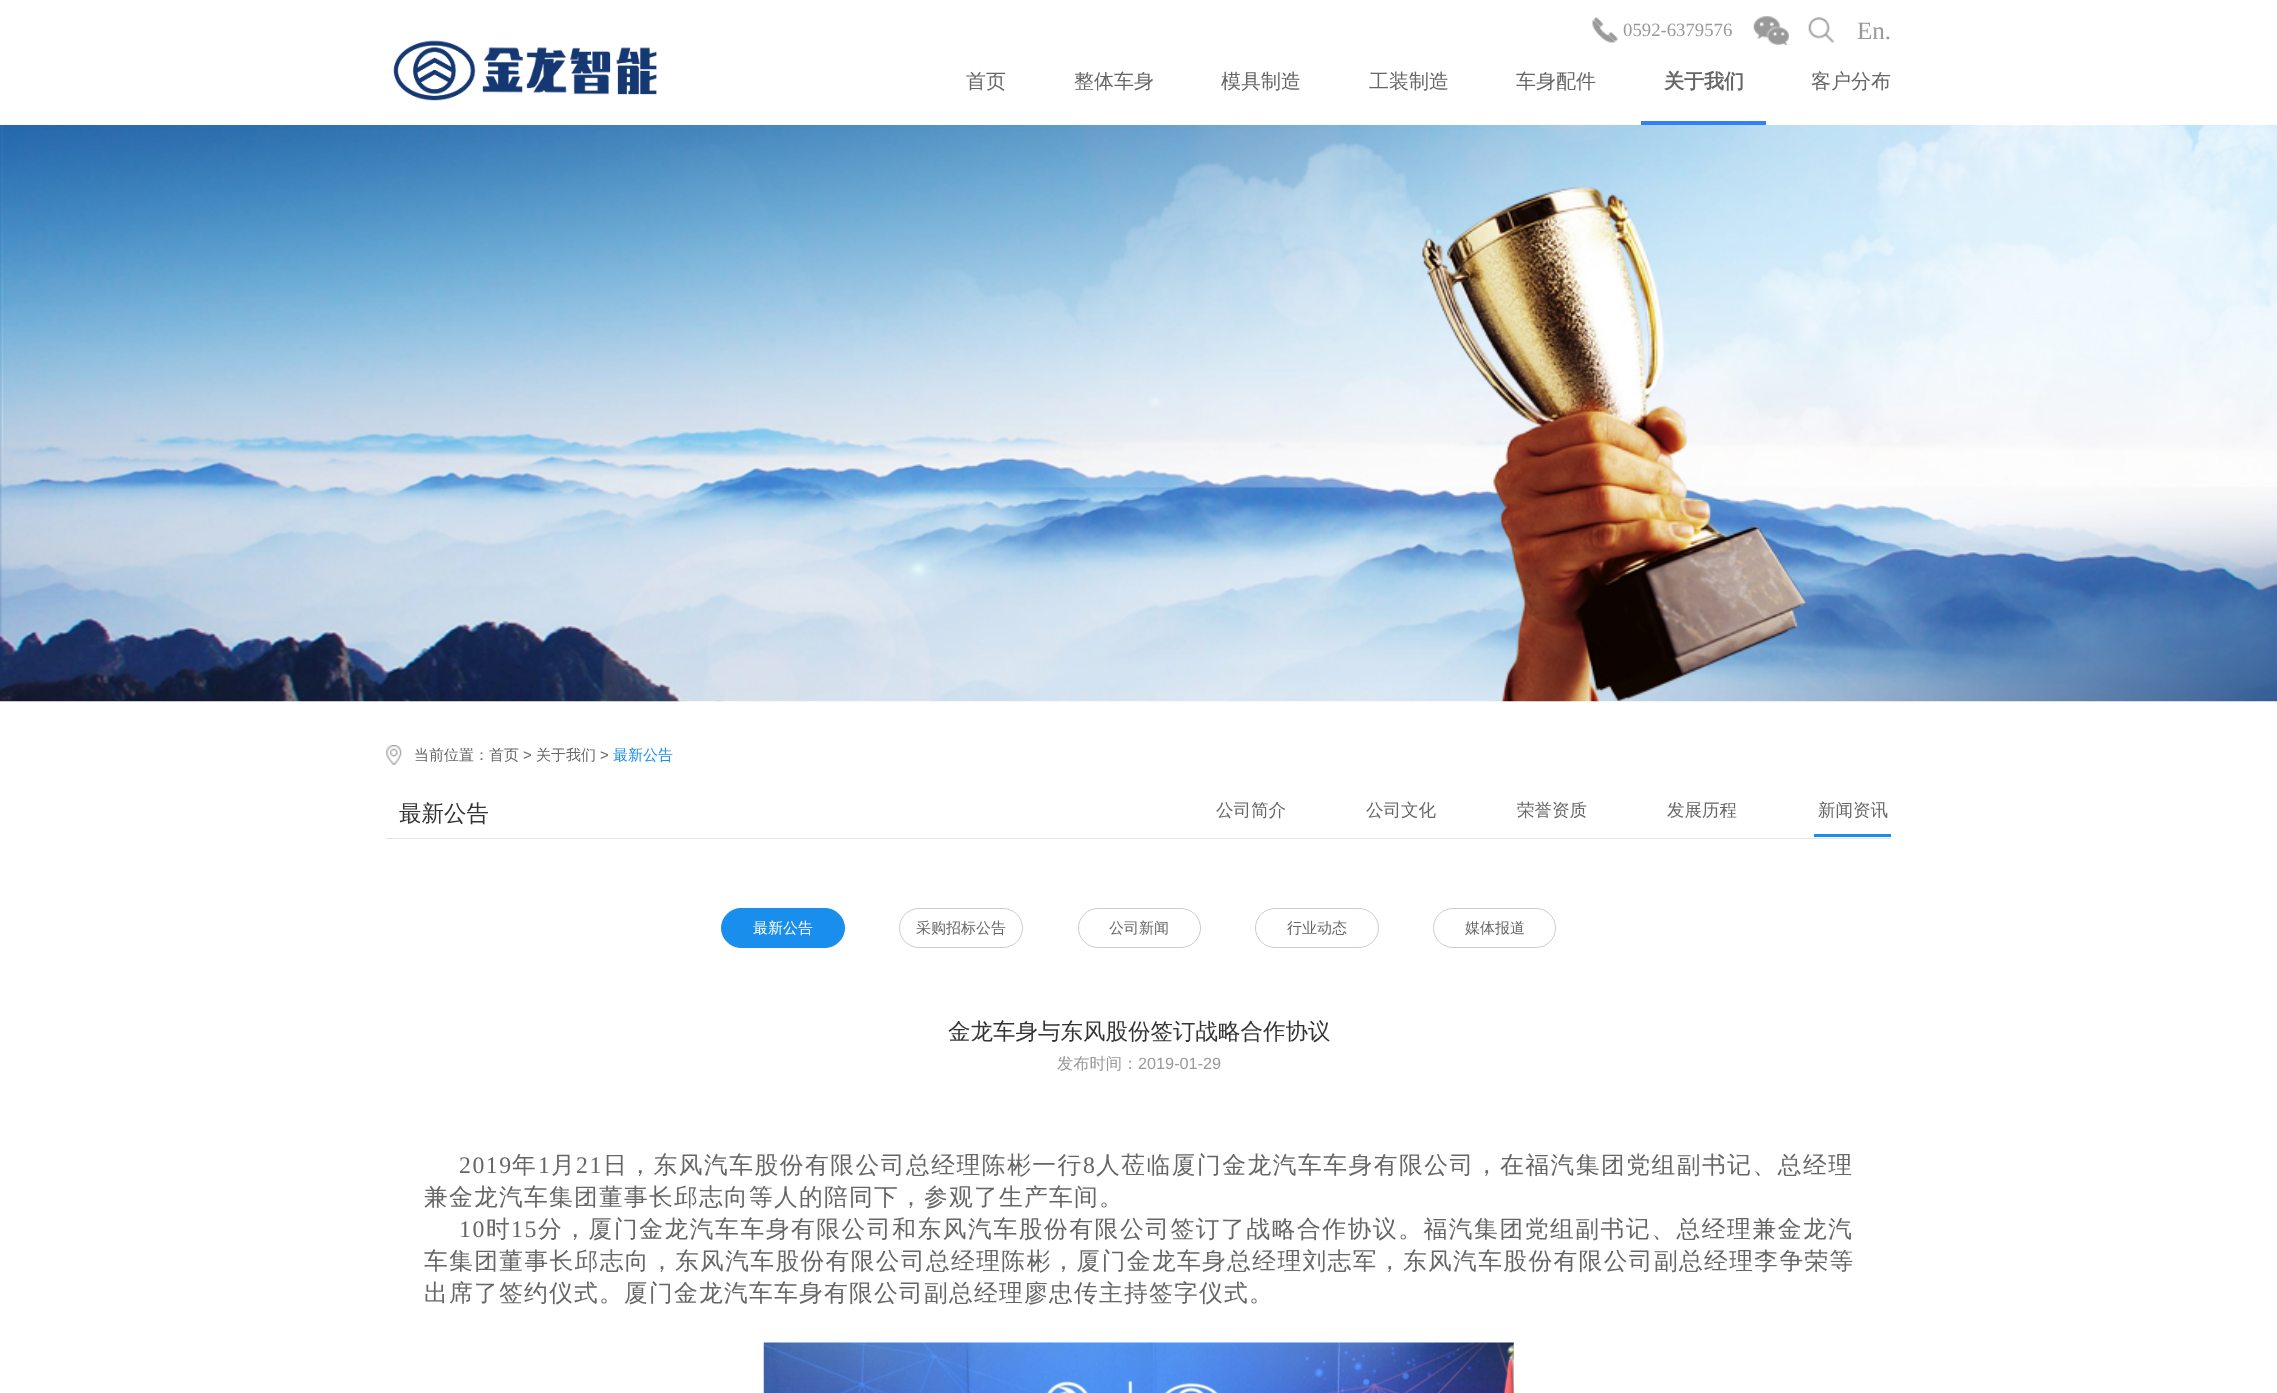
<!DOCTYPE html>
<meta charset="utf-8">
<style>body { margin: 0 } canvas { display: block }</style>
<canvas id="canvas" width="2277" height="1393"></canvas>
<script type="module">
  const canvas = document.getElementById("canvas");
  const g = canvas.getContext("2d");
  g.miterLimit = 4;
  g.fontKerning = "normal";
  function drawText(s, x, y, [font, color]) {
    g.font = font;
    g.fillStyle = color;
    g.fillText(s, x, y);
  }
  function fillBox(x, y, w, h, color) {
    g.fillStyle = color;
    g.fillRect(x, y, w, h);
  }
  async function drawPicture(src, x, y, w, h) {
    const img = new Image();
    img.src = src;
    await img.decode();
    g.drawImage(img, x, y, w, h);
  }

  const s1 = ["18.75px Liberation Serif", "#999999"];
  const s2 = ["25px Liberation Serif", "#999999"];
  const s3 = ["500 20px WenQuanYi Zen Hei", "#666666"];
  const s4 = ["bold 20px WenQuanYi Zen Hei", "#666666"];
  const s5 = ["500 15px WenQuanYi Zen Hei", "#666666"];
  const s6 = ["15px Liberation Sans", "#666666"];
  const s7 = ["500 15px WenQuanYi Zen Hei", "#198EED"];
  const s8 = ["500 22.5px WenQuanYi Zen Hei", "#333333"];
  const s9 = ["500 17.5px WenQuanYi Zen Hei", "#666666"];
  const s10 = ["500 15px WenQuanYi Zen Hei", "#FFFFFF"];
  const s11 = ["500 16.25px WenQuanYi Zen Hei", "#999999"];
  const s12 = ["16.25px Liberation Sans", "#999999"];
  const s13 = ["23.75px Liberation Serif", "#666666"];
  const s14 = ["500 23.75px WenQuanYi Zen Hei", "#666666"];

  fillBox(0, 0, 2277, 1393, "#FFFFFF");
  await drawPicture("pic1.png", 393, 40, 264, 61);
  await drawPicture("pic2.png", 1592, 17, 26, 26);
  drawText("0592-6379576", 1623, 36, s1);
  await drawPicture("pic3.png", 1753, 16, 36, 29);
  await drawPicture("pic4.png", 1808, 17, 26, 26);
  drawText("En.", 1857, 39, s2);
  drawText("首页", 966, 88, s3);
  drawText("整体车身", 1074, 88, s3);
  drawText("模具制造", 1221, 88, s3);
  drawText("工装制造", 1369, 88, s3);
  drawText("车身配件", 1516, 88, s3);
  drawText("关于我们", 1664, 88, s4);
  fillBox(1641, 121, 125, 4, "#3380F6");
  drawText("客户分布", 1811, 88, s3);
  await drawPicture("pic5.png", 0, 125, 2277, 577);
  await drawPicture("pic6.png", 386, 745, 16, 20);
  drawText("当前位置：首页", 414, 760, s5);
  drawText(">", 523, 760, s6);
  drawText("关于我们", 536, 760, s5);
  drawText(">", 600, 760, s6);
  drawText("最新公告", 613, 760, s7);
  fillBox(386, 838, 1505, 1, "#E4E4E4");
  drawText("最新公告", 399, 821, s8);
  drawText("公司简介", 1216, 816, s9);
  drawText("公司文化", 1366, 816, s9);
  drawText("荣誉资质", 1517, 816, s9);
  drawText("发展历程", 1667, 816, s9);
  drawText("新闻资讯", 1818, 816, s9);
  fillBox(1814, 834, 77, 3, "#198EED");
  g.beginPath();
  g.roundRect(721.5, 908.5, 123, 39, 19.5);
  g.fill();
  g.strokeStyle = "#198EED";
  g.stroke();
  drawText("最新公告", 753, 933, s10);
  g.beginPath();
  g.roundRect(899.5, 908.5, 123, 39, 19.5);
  g.strokeStyle = "#CCCCCC";
  g.stroke();
  drawText("采购招标公告", 916, 933, s5);
  g.beginPath();
  g.roundRect(1078.5, 908.5, 122, 39, 19.5);
  g.stroke();
  drawText("公司新闻", 1109, 933, s5);
  g.beginPath();
  g.roundRect(1255.5, 908.5, 123, 39, 19.5);
  g.stroke();
  drawText("行业动态", 1287, 933, s5);
  g.beginPath();
  g.roundRect(1433.5, 908.5, 122, 39, 19.5);
  g.stroke();
  drawText("媒体报道", 1465, 933, s5);
  drawText("金龙车身与东风股份签订战略合作协议", 948, 1039, s8);
  drawText("发布时间：", 1057, 1069, s11);
  drawText("2019-01-29", 1138, 1069, s12);
  g.letterSpacing = "1.5px";
  drawText("2019", 459, 1173, s13);
  drawText("年", 512, 1173, s14);
  drawText("1", 538, 1173, s13);
  drawText("月", 551, 1173, s14);
  drawText("21", 576, 1173, s13);
  drawText("日，东风汽车股份有限公司总经理陈彬一行", 603, 1173, s14);
  drawText("8", 1083, 1173, s13);
  drawText("人莅临厦门金龙汽车车身有限公司，在福汽集团党组副书记、总经理", 1096, 1173, s14);
  g.letterSpacing = "1.25px";
  drawText("兼金龙汽车集团董事长邱志向等人的陪同下，参观了生产车间。", 424, 1205, s14);
  g.letterSpacing = "1.55px";
  drawText("10", 459, 1237, s13);
  drawText("时", 486, 1237, s14);
  drawText("15", 511, 1237, s13);
  drawText("分，厦门金龙汽车车身有限公司和东风汽车股份有限公司签订了战略合作协议。福汽集团党组副书记、总经理兼金龙汽", 538, 1237, s14);
  g.letterSpacing = "1.35px";
  drawText("车集团董事长邱志向，东风汽车股份有限公司总经理陈彬，厦门金龙车身总经理刘志军，东风汽车股份有限公司副总经理李争荣等", 424, 1269, s14);
  g.letterSpacing = "1.25px";
  drawText("出席了签约仪式。厦门金龙汽车车身有限公司副总经理廖忠传主持签字仪式。", 424, 1301, s14);
  await drawPicture("pic7.png", 763, 1342, 751, 51);
</script>
